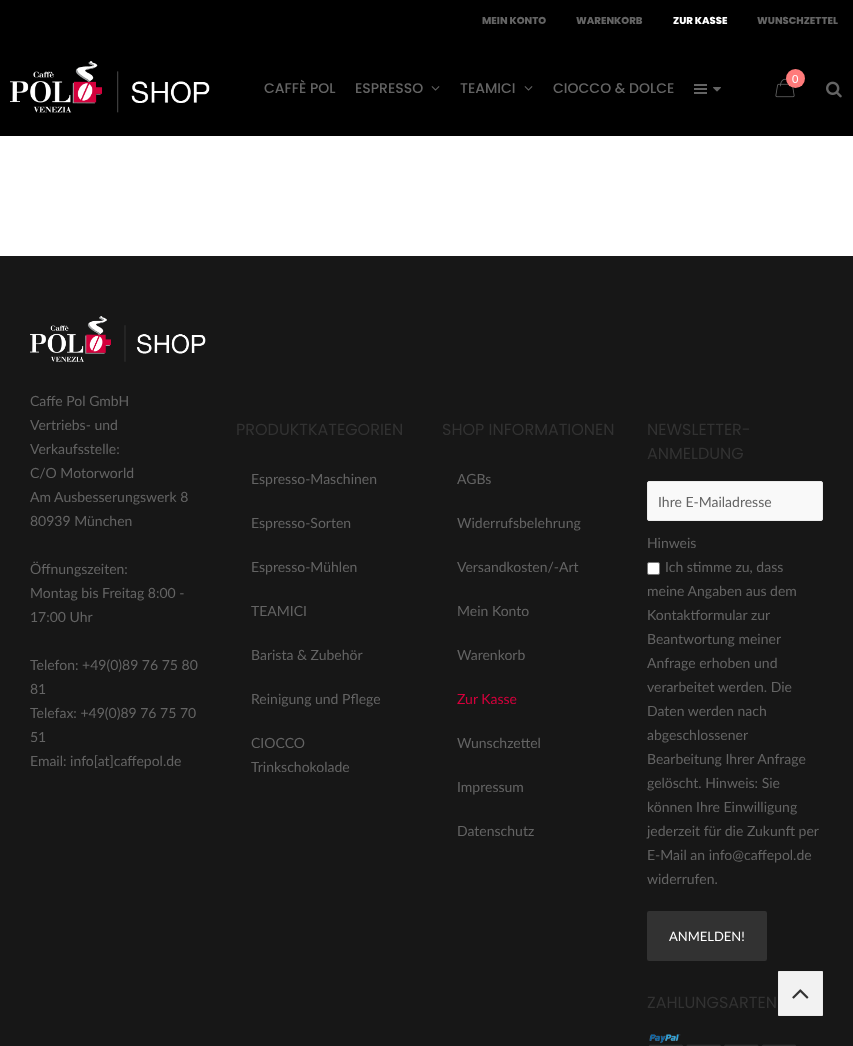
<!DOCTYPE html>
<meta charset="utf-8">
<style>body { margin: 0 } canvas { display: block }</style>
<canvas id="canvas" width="853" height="1046"></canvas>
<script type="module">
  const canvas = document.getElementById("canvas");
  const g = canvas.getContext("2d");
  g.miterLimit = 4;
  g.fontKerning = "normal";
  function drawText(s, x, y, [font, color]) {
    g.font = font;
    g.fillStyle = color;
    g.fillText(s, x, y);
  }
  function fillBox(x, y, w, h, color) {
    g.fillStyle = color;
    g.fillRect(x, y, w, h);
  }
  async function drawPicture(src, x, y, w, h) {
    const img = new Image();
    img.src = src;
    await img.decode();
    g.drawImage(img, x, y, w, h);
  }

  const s1 = ["800 10px Poppins", "#646464"];
  const s2 = ["800 10px Poppins", "#FFFFFF"];
  const s3 = ["500 14px Poppins", "#646464"];
  const s4 = ["11px Lato", "#FFFFFF"];
  const s5 = ["14px Lato", "#646464"];
  const s6 = ["16px Poppins", "#323232"];
  const s7 = ["14px Lato", "#D4003C"];
  const s8 = ["13px Lato", "#FFFFFF"];

  fillBox(0, 0, 853, 1046, "#FFFFFF");
  fillBox(0, 0, 853, 136, "#000000");
  drawText("MEIN KONTO", 482, 24, s1);
  drawText("WARENKORB", 576, 24, s1);
  drawText("ZUR KASSE", 673, 24, s2);
  drawText("WUNSCHZETTEL", 757, 24, s1);
  await drawPicture("pic1.png", 10, 61, 200, 52);
  drawText("CAFFÈ POL", 264, 93, s3);
  drawText("ESPRESSO", 355, 93, s3);
  await drawPicture("pic2.png", 431, 86, 9, 5);
  drawText("TEAMICI", 460, 93, s3);
  await drawPicture("pic2.png", 524, 86, 9, 5);
  drawText("CIOCCO & DOLCE", 553, 93, s3);
  fillBox(694, 84, 13, 2, "#646464");
  fillBox(694, 88, 13, 2, "#646464");
  fillBox(694, 92, 13, 2, "#646464");
  await drawPicture("pic3.png", 713, 87, 8, 5);
  await drawPicture("pic4.png", 775, 78, 20, 20);
  g.fillStyle = "#FF7B7B";
  g.beginPath();
  g.arc(795.5, 78.5, 9.5, 0, Math.PI * 2);
  g.fill();
  drawText("0", 792, 83, s4);
  await drawPicture("pic5.png", 826, 81, 16, 17);
  fillBox(0, 256, 853, 790, "#171717");
  await drawPicture("pic6.png", 30, 316, 176, 46);
  drawText("Caffe Pol GmbH", 30, 406, s5);
  drawText("Vertriebs- und", 30, 430, s5);
  drawText("Verkaufsstelle:", 30, 454, s5);
  drawText("C/O Motorworld", 30, 478, s5);
  drawText("Am Ausbesserungswerk 8", 30, 502, s5);
  drawText("80939 München", 30, 526, s5);
  drawText("Öffnungszeiten:", 30, 574, s5);
  drawText("Montag bis Freitag 8:00 -", 30, 598, s5);
  drawText("17:00 Uhr", 30, 622, s5);
  drawText("Telefon: +49(0)89 76 75 80", 30, 670, s5);
  drawText("81", 30, 694, s5);
  drawText("Telefax: +49(0)89 76 75 70", 30, 718, s5);
  drawText("51", 30, 742, s5);
  drawText("Email: info[at]caffepol.de", 30, 766, s5);
  drawText("PRODUKTKATEGORIEN", 236, 435, s6);
  drawText("Espresso-Maschinen", 251, 484, s5);
  drawText("Espresso-Sorten", 251, 528, s5);
  drawText("Espresso-Mühlen", 251, 572, s5);
  drawText("TEAMICI", 251, 616, s5);
  drawText("Barista & Zubehör", 251, 660, s5);
  drawText("Reinigung und Pflege", 251, 704, s5);
  drawText("CIOCCO", 251, 748, s5);
  drawText("Trinkschokolade", 251, 772, s5);
  drawText("SHOP INFORMATIONEN", 442, 435, s6);
  drawText("AGBs", 457, 484, s5);
  drawText("Widerrufsbelehrung", 457, 528, s5);
  drawText("Versandkosten/-Art", 457, 572, s5);
  drawText("Mein Konto", 457, 616, s5);
  drawText("Warenkorb", 457, 660, s5);
  drawText("Zur Kasse", 457, 704, s7);
  drawText("Wunschzettel", 457, 748, s5);
  drawText("Impressum", 457, 792, s5);
  drawText("Datenschutz", 457, 836, s5);
  drawText("NEWSLETTER-", 647, 435, s6);
  drawText("ANMELDUNG", 647, 459, s6);
  g.fillStyle = "#F9F9F9";
  g.beginPath();
  g.roundRect(647.5, 481.5, 175, 39, 1.5);
  g.fill();
  g.strokeStyle = "#EBEBEB";
  g.stroke();
  drawText("Ihre E-Mailadresse", 658, 507, s5);
  drawText("Hinweis", 647, 548, s5);
  g.fillStyle = "#FFFFFF";
  g.beginPath();
  g.roundRect(647.5, 562.5, 12, 12, 1.5);
  g.fill();
  g.strokeStyle = "#767676";
  g.stroke();
  drawText("Ich stimme zu, dass", 665, 572, s5);
  drawText("meine Angaben aus dem", 647, 596, s5);
  drawText("Kontaktformular zur", 647, 620, s5);
  drawText("Beantwortung meiner", 647, 644, s5);
  drawText("Anfrage erhoben und", 647, 668, s5);
  drawText("verarbeitet werden. Die", 647, 692, s5);
  drawText("Daten werden nach", 647, 716, s5);
  drawText("abgeschlossener", 647, 740, s5);
  drawText("Bearbeitung Ihrer Anfrage", 647, 764, s5);
  drawText("gelöscht. Hinweis: Sie", 647, 788, s5);
  drawText("können Ihre Einwilligung", 647, 812, s5);
  drawText("jederzeit für die Zukunft per", 647, 836, s5);
  drawText("E-Mail an info@caffepol.de", 647, 860, s5);
  drawText("widerrufen.", 647, 884, s5);
  g.fillStyle = "#323232";
  g.beginPath();
  g.roundRect(648, 912, 118, 48, 1);
  g.fill();
  g.strokeStyle = "#323232";
  g.lineWidth = 2;
  g.stroke();
  drawText("ANMELDEN!", 669, 941, s8);
  drawText("ZAHLUNGSARTEN", 647, 1008, s6);
  await drawPicture("pic7.png", 649, 1034, 147, 12);
  g.fillStyle = "#F2F2F2";
  g.beginPath();
  g.rect(778.5, 971.5, 44, 44);
  g.fill();
  g.strokeStyle = "#EBEBEB";
  g.lineWidth = 1;
  g.stroke();
  await drawPicture("pic8.png", 792, 989, 17, 10);
</script>
